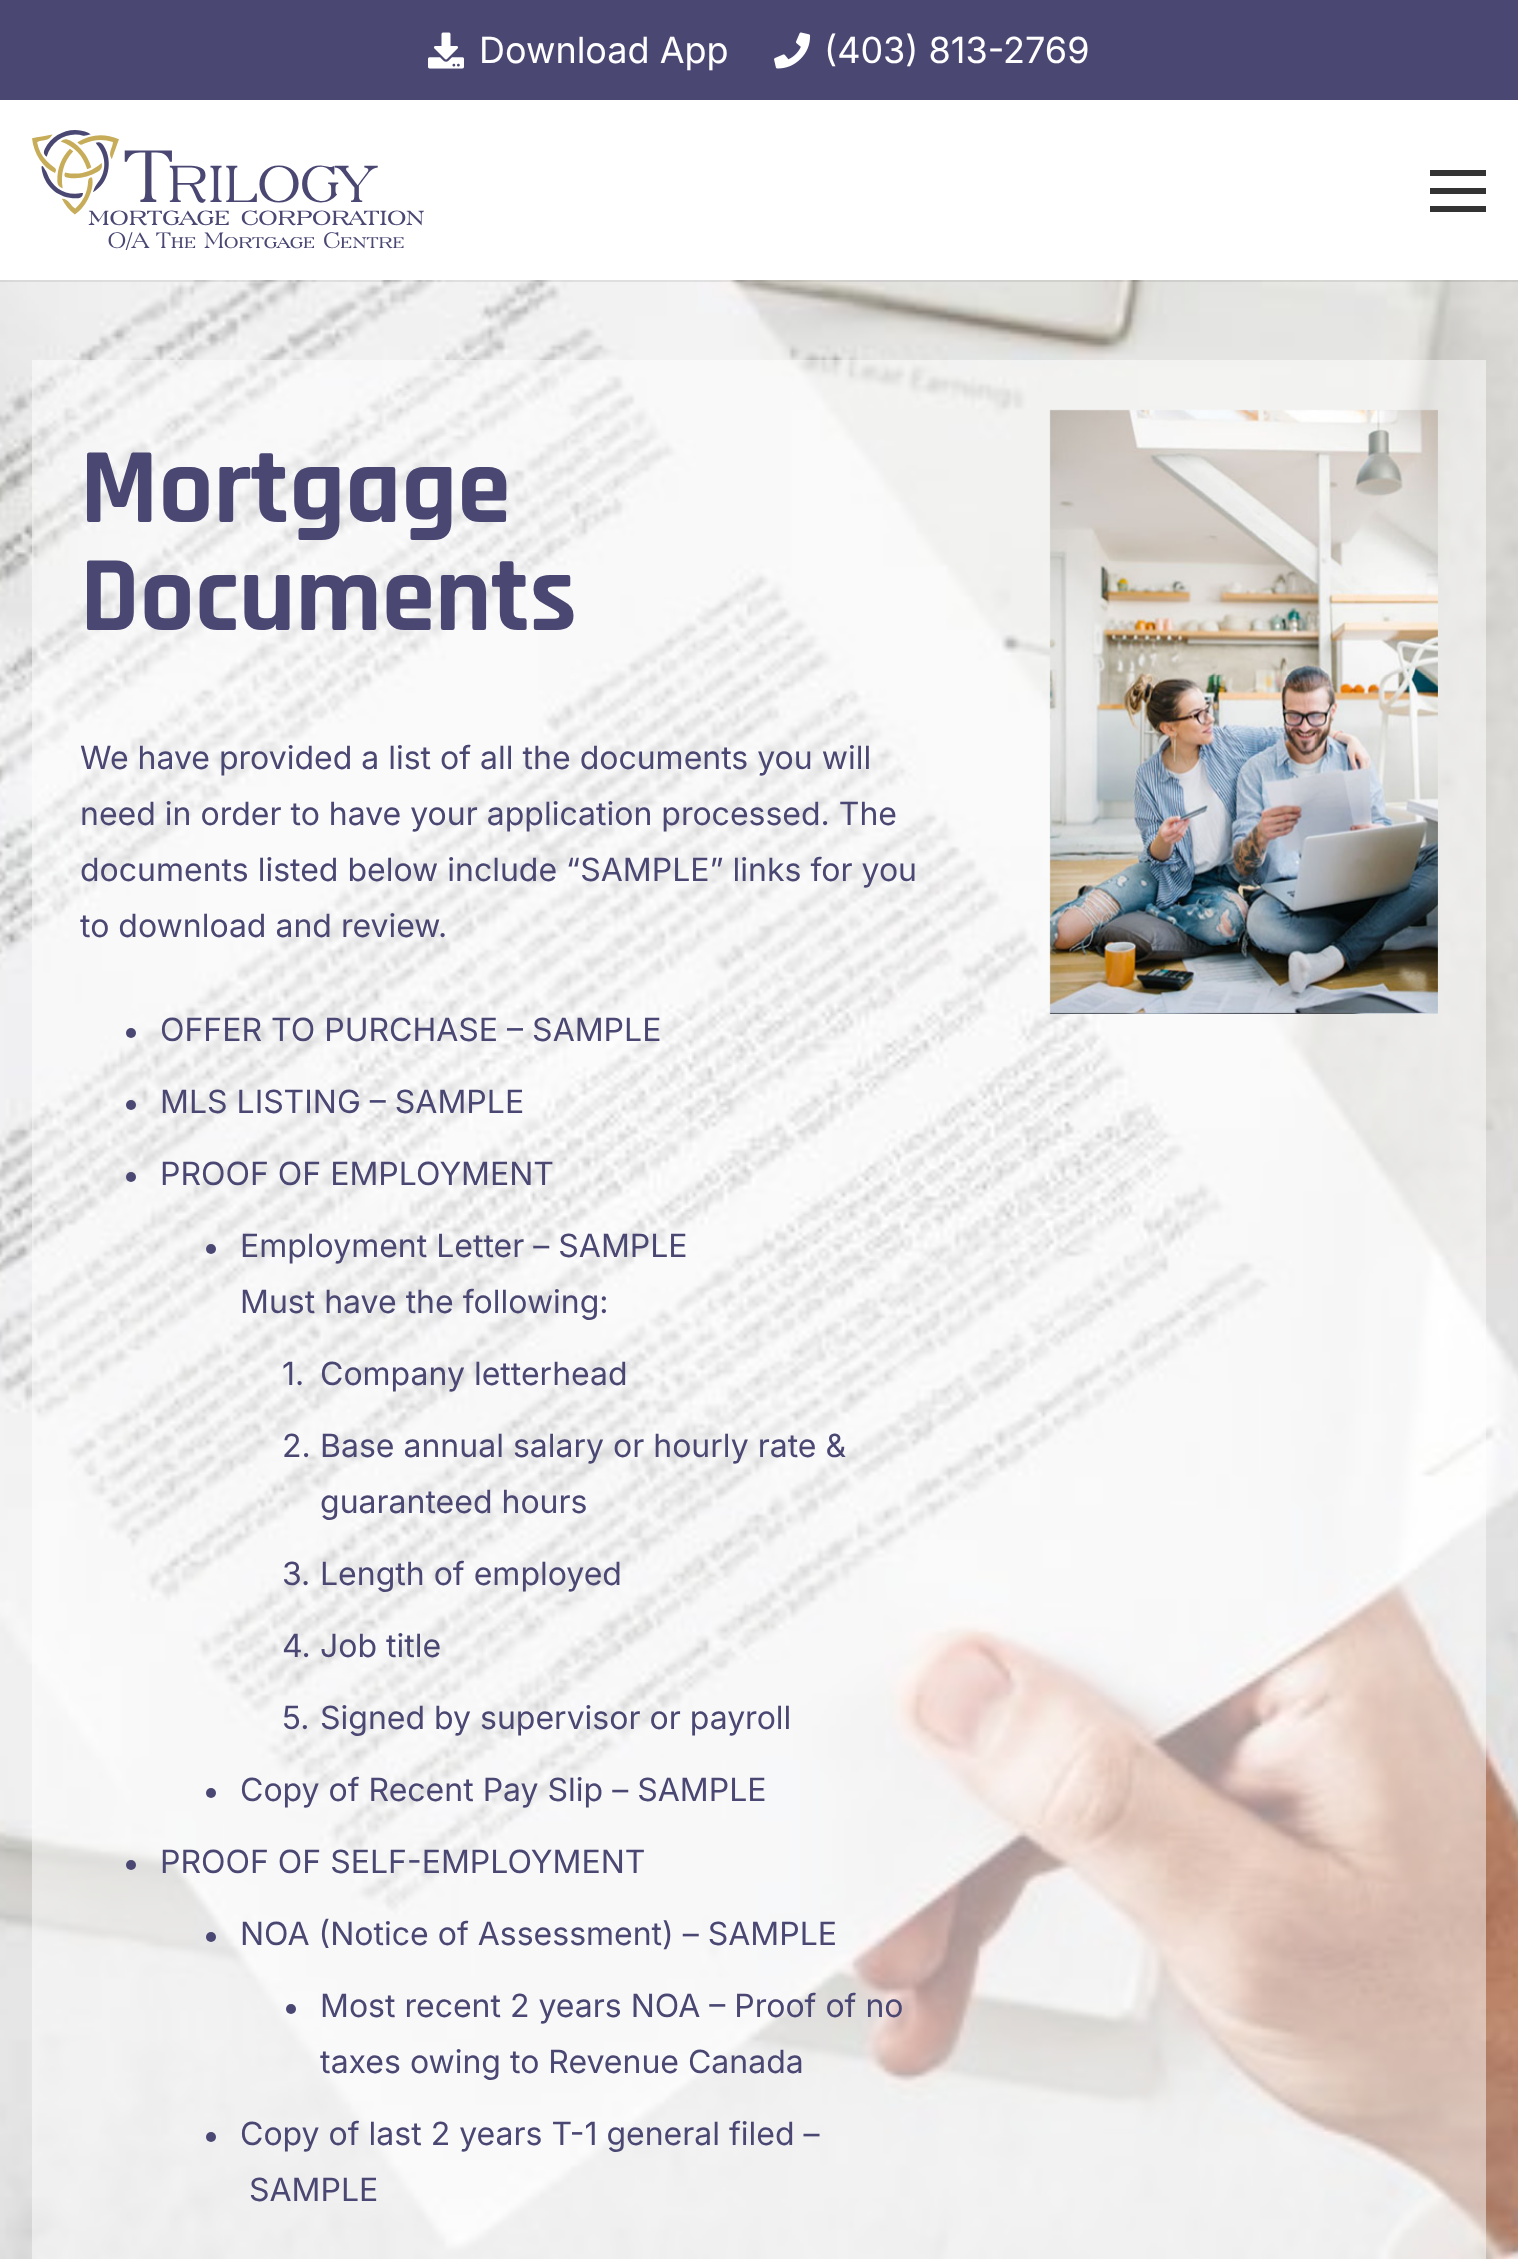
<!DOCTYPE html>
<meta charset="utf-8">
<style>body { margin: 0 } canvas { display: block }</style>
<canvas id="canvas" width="1518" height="2259"></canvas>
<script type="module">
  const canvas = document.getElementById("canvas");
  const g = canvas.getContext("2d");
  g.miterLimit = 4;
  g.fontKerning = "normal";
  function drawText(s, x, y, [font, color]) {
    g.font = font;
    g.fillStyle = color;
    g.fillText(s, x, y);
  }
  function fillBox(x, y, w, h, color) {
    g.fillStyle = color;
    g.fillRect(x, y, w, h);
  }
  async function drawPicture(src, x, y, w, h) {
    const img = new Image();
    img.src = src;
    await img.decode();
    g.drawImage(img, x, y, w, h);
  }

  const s1 = ["36px Inter", "#FFFFFF"];
  const s2 = ["bold 108px Rajdhani", "#4A4773"];
  const s3 = ["32px Inter", "#4A4773"];

  fillBox(0, 0, 1518, 2259, "#FFFFFF");
  fillBox(0, 0, 1518, 100, "#4A4773");
  await drawPicture("pic1.png", 428, 32, 36, 37);
  drawText("Download App", 479, 63, s1);
  await drawPicture("pic2.png", 774, 32, 37, 37);
  drawText("(403) 813-2769", 824, 63, s1);
  await drawPicture("pic4.png", 0, 280, 1518, 1979);
  fillBox(0, 280, 1518, 2, "rgba(0, 0, 0, 0.08)");
  await drawPicture("pic3.png", 32, 130, 392, 120);
  fillBox(1430, 188, 56, 6, "#333333");
  fillBox(1430, 170, 56, 6, "#333333");
  fillBox(1430, 206, 56, 6, "#333333");
  fillBox(32, 360, 1454, 1899, "rgba(255, 255, 255, 0.5)");
  drawText("Mortgage", 80, 522, s2);
  drawText("Documents", 80, 630, s2);
  drawText("We have provided a list of all the documents you will", 80, 769, s3);
  drawText("need in order to have your application processed. The", 80, 825, s3);
  drawText("documents listed below include “SAMPLE” links for you", 80, 881, s3);
  drawText("to download and review.", 80, 937, s3);
  g.beginPath();
  g.arc(131, 1033, 5, 0, Math.PI * 2);
  g.fill();
  drawText("OFFER TO PURCHASE – SAMPLE", 160, 1041, s3);
  g.beginPath();
  g.arc(131, 1105, 5, 0, Math.PI * 2);
  g.fill();
  drawText("MLS LISTING – SAMPLE", 160, 1113, s3);
  g.beginPath();
  g.arc(131, 1177, 5, 0, Math.PI * 2);
  g.fill();
  drawText("PROOF OF EMPLOYMENT", 160, 1185, s3);
  g.beginPath();
  g.arc(211, 1249, 5, 0, Math.PI * 2);
  g.fill();
  drawText("Employment Letter – SAMPLE", 240, 1257, s3);
  drawText("Must have the following:", 240, 1313, s3);
  drawText("1.", 282, 1385, s3);
  drawText("Company letterhead", 320, 1385, s3);
  drawText("2.", 282, 1457, s3);
  drawText("Base annual salary or hourly rate &", 320, 1457, s3);
  drawText("guaranteed hours", 320, 1513, s3);
  drawText("3.", 282, 1585, s3);
  drawText("Length of employed", 320, 1585, s3);
  drawText("4.", 282, 1657, s3);
  drawText("Job title", 320, 1657, s3);
  drawText("5.", 282, 1729, s3);
  drawText("Signed by supervisor or payroll", 320, 1729, s3);
  g.beginPath();
  g.arc(211, 1793, 5, 0, Math.PI * 2);
  g.fill();
  drawText("Copy of Recent Pay Slip – SAMPLE", 240, 1801, s3);
  g.beginPath();
  g.arc(131, 1865, 5, 0, Math.PI * 2);
  g.fill();
  drawText("PROOF OF SELF-EMPLOYMENT", 160, 1873, s3);
  g.beginPath();
  g.arc(211, 1937, 5, 0, Math.PI * 2);
  g.fill();
  drawText("NOA (Notice of Assessment) – SAMPLE", 240, 1945, s3);
  g.beginPath();
  g.arc(291, 2009, 5, 0, Math.PI * 2);
  g.fill();
  drawText("Most recent 2 years NOA – Proof of no", 320, 2017, s3);
  drawText("taxes owing to Revenue Canada", 320, 2073, s3);
  g.beginPath();
  g.arc(211, 2137, 5, 0, Math.PI * 2);
  g.fill();
  drawText("Copy of last 2 years T-1 general filed –", 240, 2145, s3);
  drawText("SAMPLE", 249, 2201, s3);
  await drawPicture("pic5.png", 1049, 409, 389, 605);
</script>
